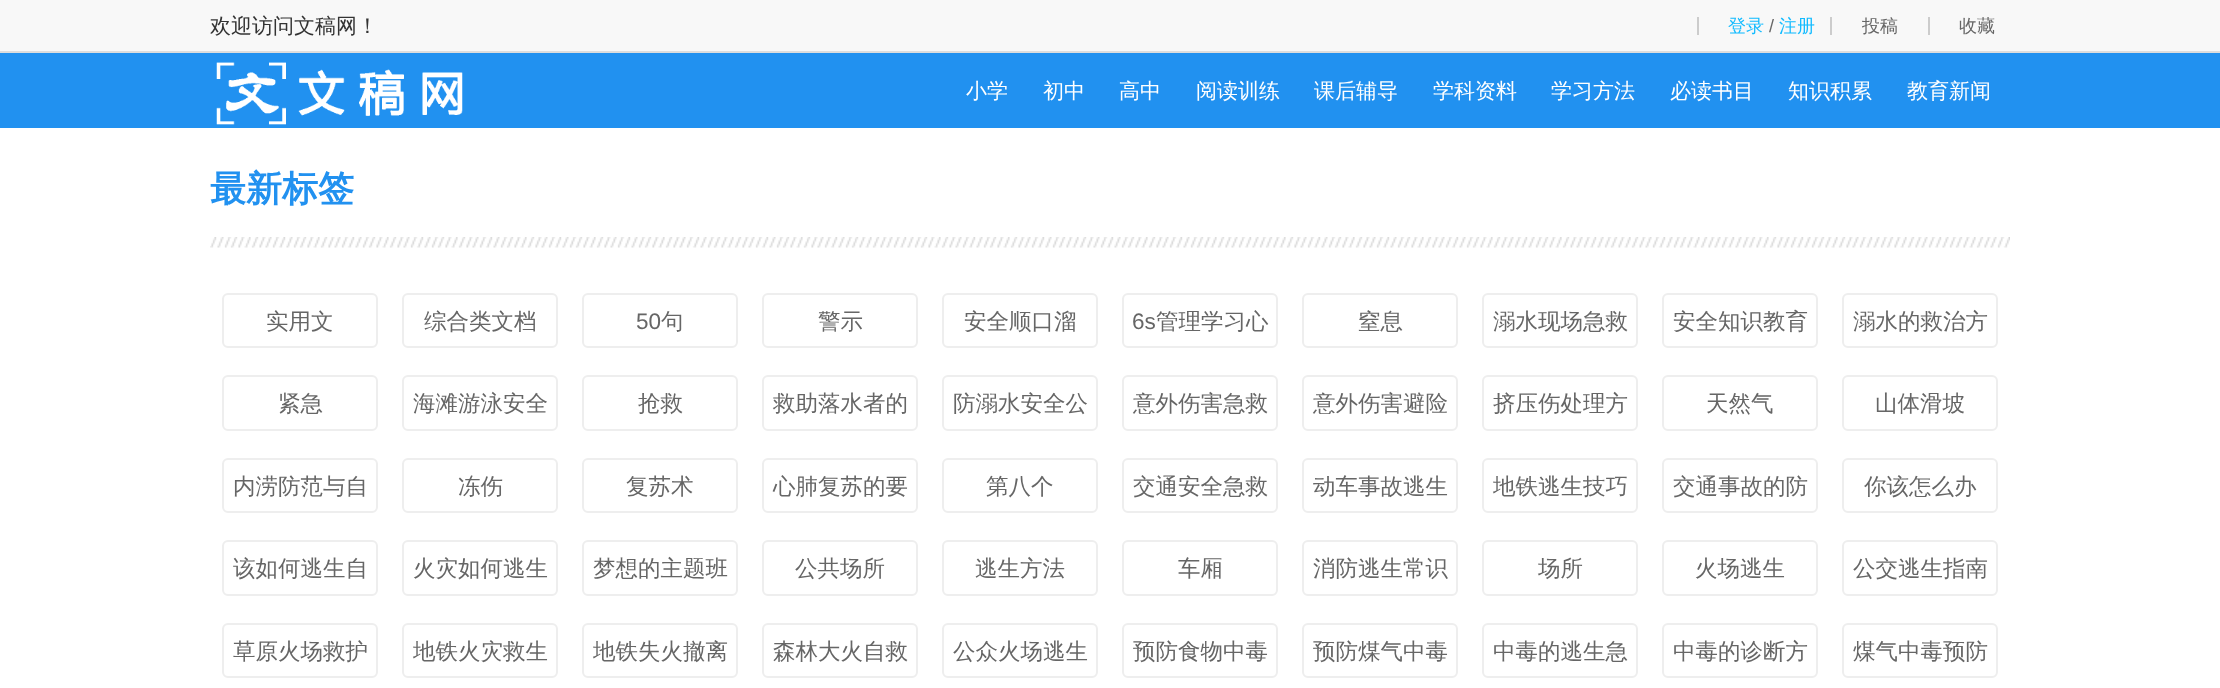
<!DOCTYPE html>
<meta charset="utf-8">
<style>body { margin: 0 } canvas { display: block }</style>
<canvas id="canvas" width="2220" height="688"></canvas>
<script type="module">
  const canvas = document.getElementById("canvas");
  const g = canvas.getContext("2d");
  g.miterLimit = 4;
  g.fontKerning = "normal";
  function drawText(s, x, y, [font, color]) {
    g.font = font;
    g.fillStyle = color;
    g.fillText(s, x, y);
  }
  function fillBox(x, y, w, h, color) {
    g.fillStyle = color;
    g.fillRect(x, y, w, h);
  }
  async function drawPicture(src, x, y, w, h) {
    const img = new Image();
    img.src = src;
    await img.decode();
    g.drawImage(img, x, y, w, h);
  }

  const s1 = ["500 21px WenQuanYi Zen Hei", "#333333"];
  const s2 = ["500 18px WenQuanYi Zen Hei", "#12BBFF"];
  const s3 = ["18px Liberation Sans", "#666666"];
  const s4 = ["500 18px WenQuanYi Zen Hei", "#666666"];
  const s5 = ["500 21px WenQuanYi Zen Hei", "#FFFFFF"];
  const s6 = ["bold 36px WenQuanYi Zen Hei", "#2191F0"];
  const s7 = ["500 22.5px WenQuanYi Zen Hei", "#666666"];
  const s8 = ["22.5px Liberation Sans", "#666666"];

  fillBox(0, 0, 2220, 688, "#F8F8F8");
  fillBox(0, 51, 2220, 2, "#DDDDDD");
  drawText("欢迎访问文稿网！", 210, 33, s1);
  fillBox(1697, 17, 2, 18, "#CCCCCC");
  drawText("登录", 1728, 32, s2);
  drawText("/", 1769, 32, s3);
  drawText("注册", 1779, 32, s2);
  fillBox(1830, 17, 2, 18, "#CCCCCC");
  drawText("投稿", 1862, 32, s4);
  fillBox(1928, 17, 2, 18, "#CCCCCC");
  drawText("收藏", 1959, 32, s4);
  fillBox(0, 53, 2220, 75, "#2191F0");
  await drawPicture("pic1.png", 216, 62, 247, 63);
  drawText("小学", 966, 98, s5);
  drawText("初中", 1043, 98, s5);
  drawText("高中", 1119, 98, s5);
  drawText("阅读训练", 1196, 98, s5);
  drawText("课后辅导", 1314, 98, s5);
  drawText("学科资料", 1433, 98, s5);
  drawText("学习方法", 1551, 98, s5);
  drawText("必读书目", 1670, 98, s5);
  drawText("知识积累", 1788, 98, s5);
  drawText("教育新闻", 1907, 98, s5);
  fillBox(0, 128, 2220, 560, "#FFFFFF");
  await drawPicture("pic2.png", 210, 237, 1800, 11);
  drawText("最新标签", 210, 201, s6);
  g.beginPath();
  g.roundRect(223, 294, 154, 53, 5);
  g.strokeStyle = "#EEEEEE";
  g.lineWidth = 2;
  g.stroke();
  drawText("实用文", 266, 329, s7);
  g.beginPath();
  g.roundRect(403, 294, 154, 53, 5);
  g.stroke();
  drawText("综合类文档", 424, 329, s7);
  g.beginPath();
  g.roundRect(583, 294, 154, 53, 5);
  g.stroke();
  drawText("50", 636, 329, s8);
  drawText("句", 661, 329, s7);
  g.beginPath();
  g.roundRect(763, 294, 154, 53, 5);
  g.stroke();
  drawText("警示", 818, 329, s7);
  g.beginPath();
  g.roundRect(943, 294, 154, 53, 5);
  g.stroke();
  drawText("安全顺口溜", 964, 329, s7);
  g.beginPath();
  g.roundRect(1123, 294, 154, 53, 5);
  g.stroke();
  drawText("6s", 1132, 329, s8);
  drawText("管理学习心", 1156, 329, s7);
  g.beginPath();
  g.roundRect(1303, 294, 154, 53, 5);
  g.stroke();
  drawText("窒息", 1358, 329, s7);
  g.beginPath();
  g.roundRect(1483, 294, 154, 53, 5);
  g.stroke();
  drawText("溺水现场急救", 1493, 329, s7);
  g.beginPath();
  g.roundRect(1663, 294, 154, 53, 5);
  g.stroke();
  drawText("安全知识教育", 1673, 329, s7);
  g.beginPath();
  g.roundRect(1843, 294, 154, 53, 5);
  g.stroke();
  drawText("溺水的救治方", 1853, 329, s7);
  g.beginPath();
  g.roundRect(223, 376, 154, 54, 5);
  g.stroke();
  drawText("紧急", 278, 411, s7);
  g.beginPath();
  g.roundRect(403, 376, 154, 54, 5);
  g.stroke();
  drawText("海滩游泳安全", 413, 411, s7);
  g.beginPath();
  g.roundRect(583, 376, 154, 54, 5);
  g.stroke();
  drawText("抢救", 638, 411, s7);
  g.beginPath();
  g.roundRect(763, 376, 154, 54, 5);
  g.stroke();
  drawText("救助落水者的", 773, 411, s7);
  g.beginPath();
  g.roundRect(943, 376, 154, 54, 5);
  g.stroke();
  drawText("防溺水安全公", 953, 411, s7);
  g.beginPath();
  g.roundRect(1123, 376, 154, 54, 5);
  g.stroke();
  drawText("意外伤害急救", 1133, 411, s7);
  g.beginPath();
  g.roundRect(1303, 376, 154, 54, 5);
  g.stroke();
  drawText("意外伤害避险", 1313, 411, s7);
  g.beginPath();
  g.roundRect(1483, 376, 154, 54, 5);
  g.stroke();
  drawText("挤压伤处理方", 1493, 411, s7);
  g.beginPath();
  g.roundRect(1663, 376, 154, 54, 5);
  g.stroke();
  drawText("天然气", 1706, 411, s7);
  g.beginPath();
  g.roundRect(1843, 376, 154, 54, 5);
  g.stroke();
  drawText("山体滑坡", 1875, 411, s7);
  g.beginPath();
  g.roundRect(223, 459, 154, 53, 5);
  g.stroke();
  drawText("内涝防范与自", 233, 494, s7);
  g.beginPath();
  g.roundRect(403, 459, 154, 53, 5);
  g.stroke();
  drawText("冻伤", 458, 494, s7);
  g.beginPath();
  g.roundRect(583, 459, 154, 53, 5);
  g.stroke();
  drawText("复苏术", 626, 494, s7);
  g.beginPath();
  g.roundRect(763, 459, 154, 53, 5);
  g.stroke();
  drawText("心肺复苏的要", 773, 494, s7);
  g.beginPath();
  g.roundRect(943, 459, 154, 53, 5);
  g.stroke();
  drawText("第八个", 986, 494, s7);
  g.beginPath();
  g.roundRect(1123, 459, 154, 53, 5);
  g.stroke();
  drawText("交通安全急救", 1133, 494, s7);
  g.beginPath();
  g.roundRect(1303, 459, 154, 53, 5);
  g.stroke();
  drawText("动车事故逃生", 1313, 494, s7);
  g.beginPath();
  g.roundRect(1483, 459, 154, 53, 5);
  g.stroke();
  drawText("地铁逃生技巧", 1493, 494, s7);
  g.beginPath();
  g.roundRect(1663, 459, 154, 53, 5);
  g.stroke();
  drawText("交通事故的防", 1673, 494, s7);
  g.beginPath();
  g.roundRect(1843, 459, 154, 53, 5);
  g.stroke();
  drawText("你该怎么办", 1864, 494, s7);
  g.beginPath();
  g.roundRect(223, 541, 154, 54, 5);
  g.stroke();
  drawText("该如何逃生自", 233, 576, s7);
  g.beginPath();
  g.roundRect(403, 541, 154, 54, 5);
  g.stroke();
  drawText("火灾如何逃生", 413, 576, s7);
  g.beginPath();
  g.roundRect(583, 541, 154, 54, 5);
  g.stroke();
  drawText("梦想的主题班", 593, 576, s7);
  g.beginPath();
  g.roundRect(763, 541, 154, 54, 5);
  g.stroke();
  drawText("公共场所", 795, 576, s7);
  g.beginPath();
  g.roundRect(943, 541, 154, 54, 5);
  g.stroke();
  drawText("逃生方法", 975, 576, s7);
  g.beginPath();
  g.roundRect(1123, 541, 154, 54, 5);
  g.stroke();
  drawText("车厢", 1178, 576, s7);
  g.beginPath();
  g.roundRect(1303, 541, 154, 54, 5);
  g.stroke();
  drawText("消防逃生常识", 1313, 576, s7);
  g.beginPath();
  g.roundRect(1483, 541, 154, 54, 5);
  g.stroke();
  drawText("场所", 1538, 576, s7);
  g.beginPath();
  g.roundRect(1663, 541, 154, 54, 5);
  g.stroke();
  drawText("火场逃生", 1695, 576, s7);
  g.beginPath();
  g.roundRect(1843, 541, 154, 54, 5);
  g.stroke();
  drawText("公交逃生指南", 1853, 576, s7);
  g.beginPath();
  g.roundRect(223, 624, 154, 53, 5);
  g.stroke();
  drawText("草原火场救护", 233, 659, s7);
  g.beginPath();
  g.roundRect(403, 624, 154, 53, 5);
  g.stroke();
  drawText("地铁火灾救生", 413, 659, s7);
  g.beginPath();
  g.roundRect(583, 624, 154, 53, 5);
  g.stroke();
  drawText("地铁失火撤离", 593, 659, s7);
  g.beginPath();
  g.roundRect(763, 624, 154, 53, 5);
  g.stroke();
  drawText("森林大火自救", 773, 659, s7);
  g.beginPath();
  g.roundRect(943, 624, 154, 53, 5);
  g.stroke();
  drawText("公众火场逃生", 953, 659, s7);
  g.beginPath();
  g.roundRect(1123, 624, 154, 53, 5);
  g.stroke();
  drawText("预防食物中毒", 1133, 659, s7);
  g.beginPath();
  g.roundRect(1303, 624, 154, 53, 5);
  g.stroke();
  drawText("预防煤气中毒", 1313, 659, s7);
  g.beginPath();
  g.roundRect(1483, 624, 154, 53, 5);
  g.stroke();
  drawText("中毒的逃生急", 1493, 659, s7);
  g.beginPath();
  g.roundRect(1663, 624, 154, 53, 5);
  g.stroke();
  drawText("中毒的诊断方", 1673, 659, s7);
  g.beginPath();
  g.roundRect(1843, 624, 154, 53, 5);
  g.stroke();
  drawText("煤气中毒预防", 1853, 659, s7);
</script>
